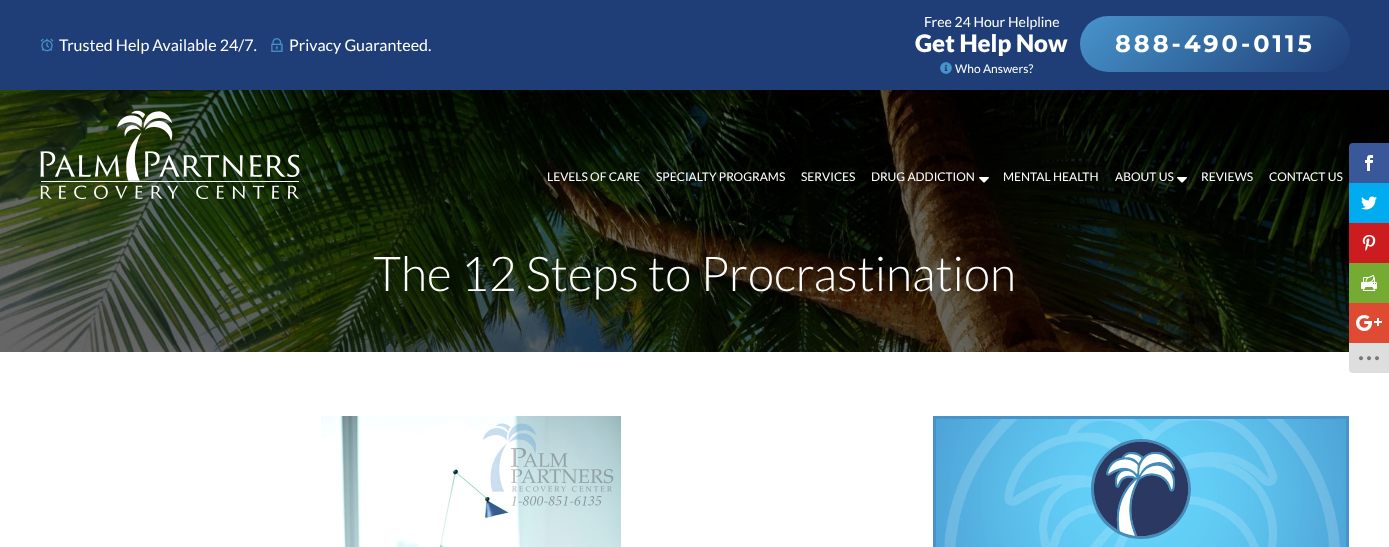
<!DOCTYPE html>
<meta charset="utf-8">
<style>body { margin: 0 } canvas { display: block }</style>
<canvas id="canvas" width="1389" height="547"></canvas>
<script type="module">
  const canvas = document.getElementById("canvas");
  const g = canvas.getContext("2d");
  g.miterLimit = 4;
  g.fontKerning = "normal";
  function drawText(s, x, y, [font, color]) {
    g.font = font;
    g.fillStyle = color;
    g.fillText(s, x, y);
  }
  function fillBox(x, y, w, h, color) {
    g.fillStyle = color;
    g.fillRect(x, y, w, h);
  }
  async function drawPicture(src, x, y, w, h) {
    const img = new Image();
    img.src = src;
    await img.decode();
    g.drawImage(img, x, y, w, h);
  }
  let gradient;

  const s1 = ["16px Lato", "#FFFFFF"];
  const s2 = ["14px Lato", "#FFFFFF"];
  const s3 = ["900 24px Lato", "#FFFFFF"];
  const s4 = ["bold 24px Montserrat", "#FFFFFF"];
  const s5 = ["12px Lato", "#FFFFFF"];
  const s6 = ["300 48px Lato", "#FFFFFF"];

  fillBox(0, 0, 1389, 547, "#FFFFFF");
  fillBox(0, 0, 1389, 90, "#1F3E77");
  await drawPicture("pic1.png", 40, 38, 14, 14);
  drawText("Trusted Help Available 24/7.", 59, 51, s1);
  await drawPicture("pic2.png", 271, 38, 12, 14);
  drawText("Privacy Guaranteed.", 289, 51, s1);
  drawText("Free 24 Hour Helpline", 924, 27, s2);
  drawText("Get Help Now", 915, 52, s3);
  gradient = g.createLinearGradient(1134, -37, 1297, 125);
  gradient.addColorStop(0, "#4794CB");
  gradient.addColorStop(1, "#1F3E77");
  g.fillStyle = gradient;
  g.beginPath();
  g.roundRect(1080, 16, 270, 56, 28);
  g.fill();
  g.letterSpacing = "3px";
  drawText("888-490-0115", 1115, 52, s4);
  await drawPicture("pic3.png", 940, 62, 12, 12);
  g.letterSpacing = "0px";
  drawText("Who Answers?", 955, 73, s5);
  await drawPicture("pic4.png", 0, 90, 1389, 262);
  await drawPicture("pic5.png", 40, 110, 260, 89);
  drawText("LEVELS OF CARE", 547, 181, s5);
  drawText("SPECIALTY PROGRAMS", 656, 181, s5);
  drawText("SERVICES", 801, 181, s5);
  drawText("DRUG ADDICTION", 871, 181, s5);
  await drawPicture("pic6.png", 979, 177, 10, 6);
  drawText("MENTAL HEALTH", 1003, 181, s5);
  drawText("ABOUT US", 1115, 181, s5);
  await drawPicture("pic7.png", 1177, 177, 10, 6);
  drawText("REVIEWS", 1201, 181, s5);
  drawText("CONTACT US", 1269, 181, s5);
  drawText("The 12 Steps to Procrastination", 373, 291, s6);
  g.fillStyle = "#3A579A";
  g.beginPath();
  g.roundRect(1349, 143, 40, 40, [4, 0, 0, 0]);
  g.fill();
  await drawPicture("pic8.png", 1365, 155, 8, 16);
  fillBox(1349, 183, 40, 40, "#00ABF0");
  await drawPicture("pic9.png", 1361, 196, 16, 14);
  fillBox(1349, 223, 40, 40, "#CD1C1F");
  await drawPicture("pic10.png", 1362, 235, 14, 16);
  fillBox(1349, 263, 40, 40, "#75AA33");
  await drawPicture("pic11.png", 1361, 275, 16, 16);
  fillBox(1349, 303, 40, 40, "#DF4A32");
  await drawPicture("pic12.png", 1356, 315, 26, 16);
  g.fillStyle = "#DEDEDE";
  g.beginPath();
  g.roundRect(1349, 343, 40, 30, [0, 0, 0, 4]);
  g.fill();
  await drawPicture("pic13.png", 1359, 356, 20, 5);
  await drawPicture("pic14.png", 321, 416, 300, 131);
  fillBox(936, 419, 410, 128, "#4794CB");
  await drawPicture("pic15.png", 936, 419, 410, 128);
  g.strokeStyle = "#4794CB";
  g.lineWidth = 3;
  g.strokeRect(934.5, 417.5, 413, 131);
  await drawPicture("pic16.png", 1091, 439, 100, 100);
</script>
